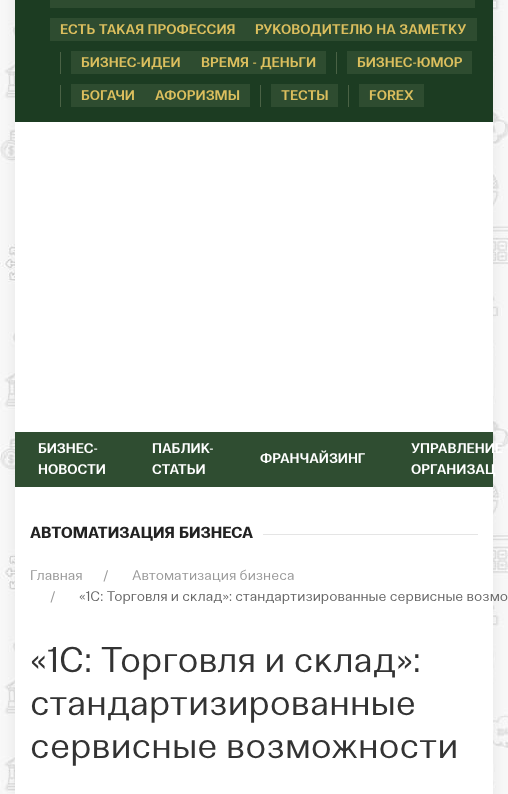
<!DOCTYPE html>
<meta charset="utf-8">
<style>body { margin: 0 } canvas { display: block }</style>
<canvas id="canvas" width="508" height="794"></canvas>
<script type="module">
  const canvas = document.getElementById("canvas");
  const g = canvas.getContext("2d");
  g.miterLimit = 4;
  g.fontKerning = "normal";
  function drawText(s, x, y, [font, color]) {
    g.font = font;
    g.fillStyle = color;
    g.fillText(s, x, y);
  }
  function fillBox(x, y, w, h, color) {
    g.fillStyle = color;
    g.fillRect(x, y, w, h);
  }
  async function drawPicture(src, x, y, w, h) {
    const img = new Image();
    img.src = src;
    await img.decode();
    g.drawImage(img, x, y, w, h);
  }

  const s1 = ["600 14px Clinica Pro", "#DCBF5E"];
  const s2 = ["600 14px Clinica Pro", "#FFFFFF"];
  const s3 = ["bold 16px Clinica Pro", "#222222"];
  const s4 = ["14px Clinica Pro", "#999999"];
  const s5 = ["14px Clinica Pro", "#666666"];
  const s6 = ["35.75px Clinica Pro", "#333333"];

  fillBox(0, 0, 508, 794, "#FFFFFF");
  await drawPicture("pic1.png", 0, 0, 508, 794);
  g.fillStyle = "rgba(0, 0, 0, 0.08)";
  g.filter = "blur(7.5px)";
  g.beginPath();
  g.rect(15, -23, 478, 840);
  g.fill();
  g.filter = "none";
  fillBox(15, 122, 478, 672, "#FFFFFF");
  fillBox(15, 0, 478, 122, "#1C3C22");
  fillBox(50, 0, 425, 8, "#2E4C30");
  fillBox(50, 18, 427, 23, "#2E4C30");
  drawText("ЕСТЬ ТАКАЯ ПРОФЕССИЯ", 60, 34, s1);
  drawText("РУКОВОДИТЕЛЮ НА ЗАМЕТКУ", 255, 34, s1);
  fillBox(60, 52, 1, 22, "#4A6245");
  fillBox(71, 51, 255, 23, "#2E4C30");
  drawText("БИЗНЕС-ИДЕИ", 81, 67, s1);
  drawText("ВРЕМЯ - ДЕНЬГИ", 201, 67, s1);
  fillBox(336, 52, 1, 22, "#4A6245");
  fillBox(347, 51, 125, 23, "#2E4C30");
  drawText("БИЗНЕС-ЮМОР", 357, 67, s1);
  fillBox(60, 85, 1, 22, "#4A6245");
  fillBox(71, 84, 179, 23, "#2E4C30");
  drawText("БОГАЧИ", 81, 100, s1);
  drawText("АФОРИЗМЫ", 155, 100, s1);
  fillBox(260, 85, 1, 22, "#4A6245");
  fillBox(271, 84, 67, 23, "#2E4C30");
  drawText("ТЕСТЫ", 281, 100, s1);
  fillBox(348, 85, 1, 22, "#4A6245");
  fillBox(359, 84, 65, 23, "#2E4C30");
  drawText("FOREX", 369, 100, s1);
  fillBox(15, 432, 478, 55, "#2F4D31");
  drawText("БИЗНЕС-", 38, 453, s2);
  drawText("НОВОСТИ", 38, 474, s2);
  drawText("ПАБЛИК-", 152, 453, s2);
  drawText("СТАТЬИ", 152, 474, s2);
  drawText("ФРАНЧАЙЗИНГ", 260, 463, s2);
  drawText("УПРАВЛЕНИЕ", 411, 453, s2);
  drawText("ОРГАНИЗАЦ", 411, 474, s2);
  drawText("АВТОМАТИЗАЦИЯ БИЗНЕСА", 30, 538, s3);
  fillBox(263, 534, 215, 1, "#E5E5E5");
  drawText("Главная", 30, 580, s4);
  drawText("/", 103, 580, s4);
  drawText("Автоматизация бизнеса", 132, 580, s4);
  drawText("/", 50, 601, s4);
  drawText("«1С: Торговля и склад»: стандартизированные сервисные возмо", 79, 601, s5);
  drawText("«1С: Торговля и склад»:", 30, 672, s6);
  drawText("стандартизированные", 30, 715, s6);
  drawText("сервисные возможности", 30, 758, s6);
</script>
